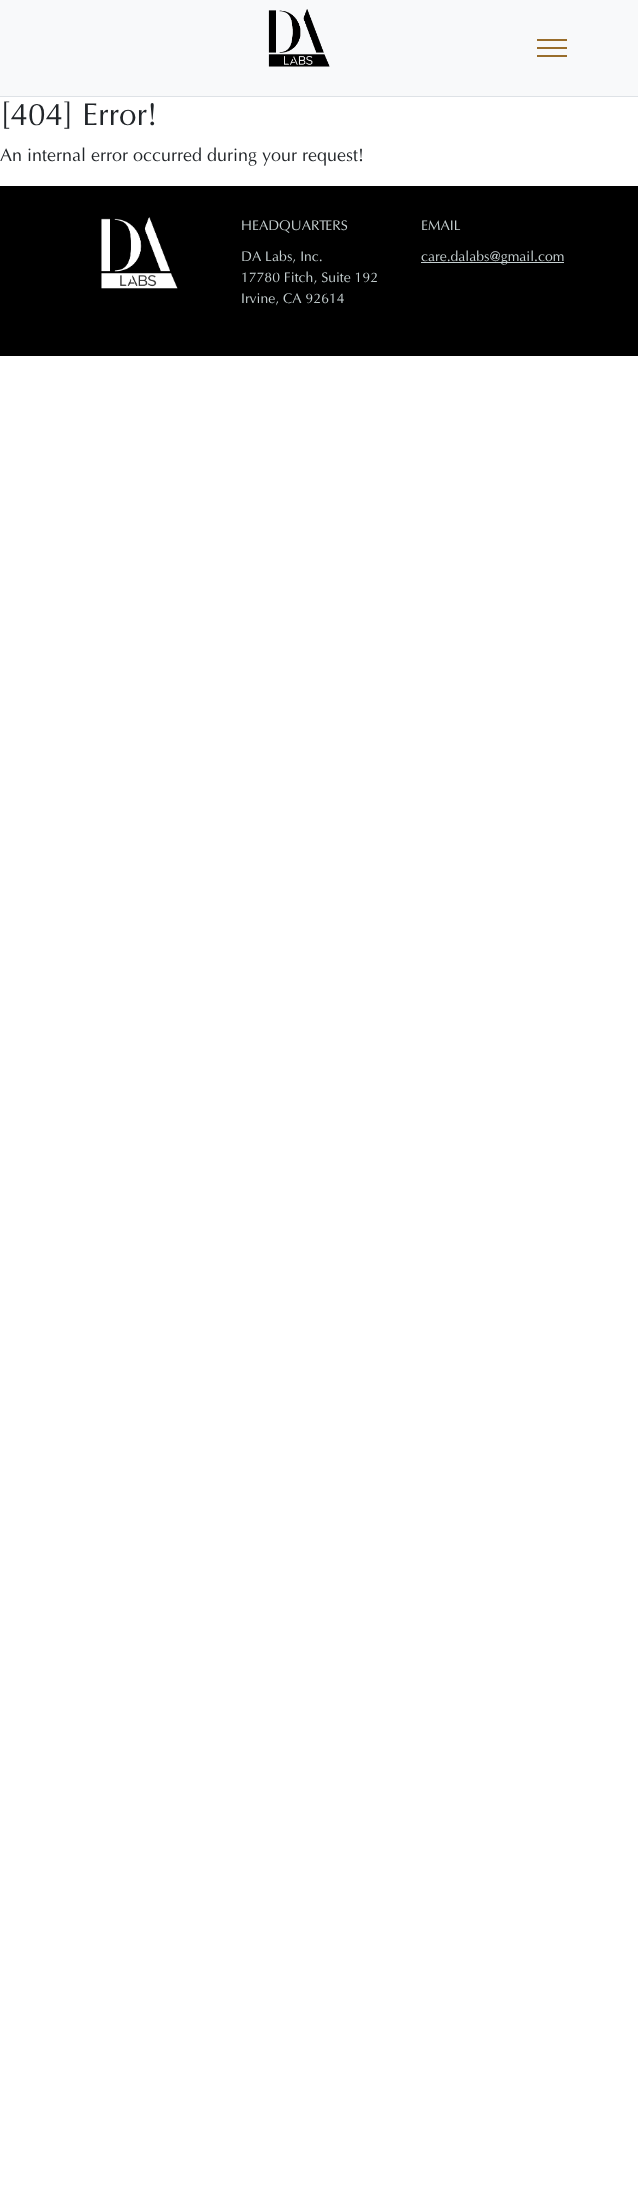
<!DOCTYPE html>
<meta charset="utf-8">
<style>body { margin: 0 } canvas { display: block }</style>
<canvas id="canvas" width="638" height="2195"></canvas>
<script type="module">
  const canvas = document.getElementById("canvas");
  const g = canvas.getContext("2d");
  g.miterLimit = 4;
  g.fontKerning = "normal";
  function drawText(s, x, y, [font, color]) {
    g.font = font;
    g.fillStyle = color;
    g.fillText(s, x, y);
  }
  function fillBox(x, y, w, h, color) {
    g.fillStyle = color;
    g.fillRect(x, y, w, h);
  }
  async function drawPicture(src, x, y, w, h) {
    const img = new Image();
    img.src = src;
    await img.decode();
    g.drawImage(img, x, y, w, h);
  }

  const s1 = ["31.5px Optima", "#212529"];
  const s2 = ["18px Optima", "#212529"];
  const s3 = ["14px Optima", "#C6D0D1"];

  fillBox(0, 0, 638, 2195, "#FFFFFF");
  fillBox(0, 0, 638, 96, "#F8F9FA");
  fillBox(0, 96, 638, 1, "#DEE2E6");
  await drawPicture("pic1.png", 268, 9, 62, 58);
  fillBox(537, 47, 30, 2, "#996D2B");
  fillBox(537, 39, 30, 2, "#996D2B");
  fillBox(537, 55, 30, 2, "#996D2B");
  drawText("[404] Error!", 0, 125, s1);
  drawText("An internal error occurred during your request!", 0, 161, s2);
  fillBox(0, 186, 638, 170, "#000000");
  await drawPicture("pic2.png", 101, 217, 77, 72);
  drawText("HEADQUARTERS", 241, 230, s3);
  drawText("DA Labs, Inc.", 241, 261, s3);
  drawText("17780 Fitch, Suite 192", 241, 282, s3);
  drawText("Irvine, CA 92614", 241, 303, s3);
  drawText("EMAIL", 421, 230, s3);
  fillBox(421, 262, 143, 1, "#C6D0D1");
  drawText("care.dalabs@gmail.com", 421, 261, s3);
</script>
